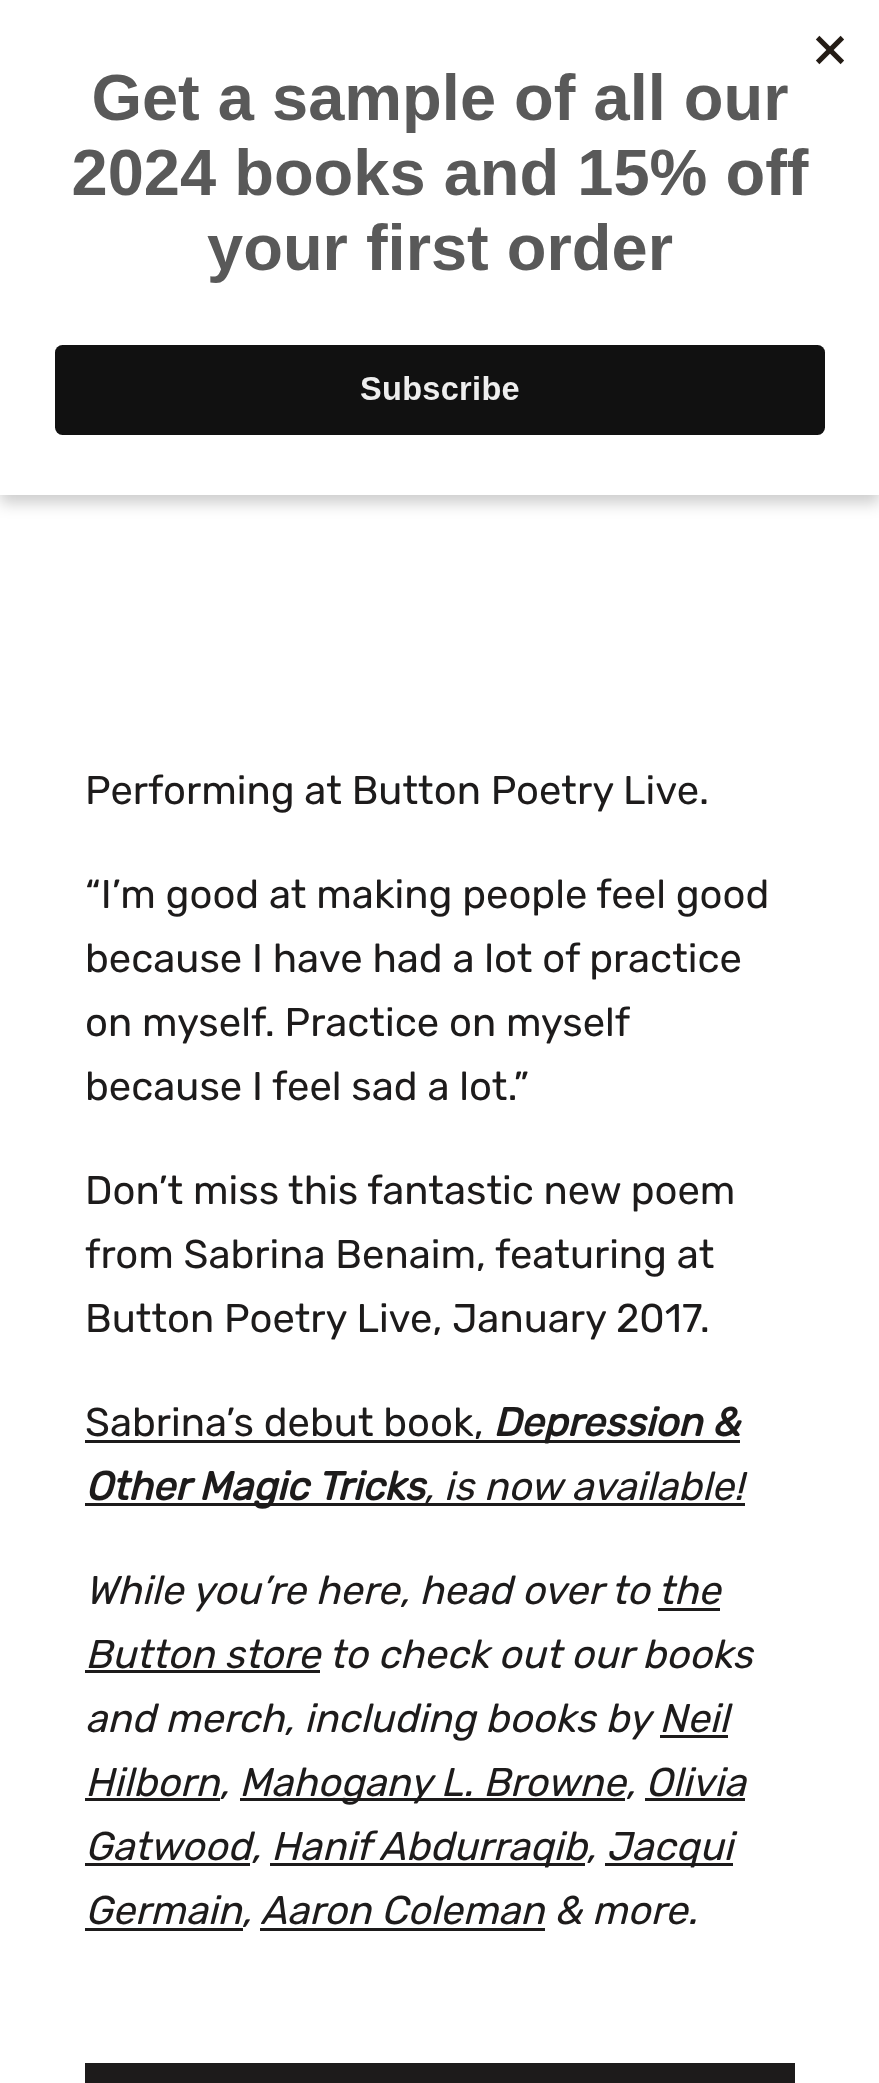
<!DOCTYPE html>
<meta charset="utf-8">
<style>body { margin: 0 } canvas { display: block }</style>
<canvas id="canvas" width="879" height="2083"></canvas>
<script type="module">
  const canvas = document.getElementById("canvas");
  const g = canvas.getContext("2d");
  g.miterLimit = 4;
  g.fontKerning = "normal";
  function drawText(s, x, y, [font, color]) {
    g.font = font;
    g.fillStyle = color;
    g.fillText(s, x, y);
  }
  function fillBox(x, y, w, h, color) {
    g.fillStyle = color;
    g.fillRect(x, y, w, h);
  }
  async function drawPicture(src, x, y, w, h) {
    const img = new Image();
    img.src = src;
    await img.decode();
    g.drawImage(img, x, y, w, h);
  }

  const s1 = ["300 40px Rubik", "#1D1B1B"];
  const s2 = ["italic bold 40px Rubik", "#1D1B1B"];
  const s3 = ["italic 300 40px Rubik", "#1D1B1B"];

  fillBox(0, 0, 879, 2083, "#FFFFFF");
  g.fillStyle = "rgba(0, 0, 0, 0.2)";
  g.filter = "blur(7.5px)";
  g.beginPath();
  g.rect(0, 8, 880, 495);
  g.fill();
  g.filter = "none";
  fillBox(0, 0, 879, 495, "#FFFFFF");
  await drawPicture("pic1.png", 55, 35, 789, 400);
  drawText("Performing at Button Poetry Live.", 85, 804, s1);
  drawText("“I’m good at making people feel good", 85, 908, s1);
  drawText("because I have had a lot of practice", 85, 972, s1);
  drawText("on myself. Practice on myself", 85, 1036, s1);
  drawText("because I feel sad a lot.”", 85, 1100, s1);
  drawText("Don’t miss this fantastic new poem", 85, 1204, s1);
  drawText("from Sabrina Benaim, featuring at", 85, 1268, s1);
  drawText("Button Poetry Live, January 2017.", 85, 1332, s1);
  drawText("Sabrina’s debut book,", 85, 1436, s1);
  fillBox(85, 1440, 655, 3, "#1D1B1B");
  drawText("Depression &", 493, 1436, s2);
  fillBox(85, 1503, 340, 3, "#1D1B1B");
  drawText("Other Magic Tricks", 85, 1500, s2);
  fillBox(425, 1503, 320, 3, "#1D1B1B");
  drawText(", is now available!", 424, 1500, s3);
  drawText("While you’re here, head over to", 85, 1604, s3);
  fillBox(658, 1608, 62, 3, "#1D1B1B");
  drawText("the", 658, 1604, s3);
  drawText("Button store", 85, 1668, s3);
  fillBox(85, 1670, 235, 3, "#1D1B1B");
  drawText("to check out our books", 329, 1668, s3);
  drawText("and merch, including books by Neil", 85, 1732, s3);
  fillBox(660, 1735, 68, 3, "#1D1B1B");
  fillBox(85, 1798, 135, 3, "#1D1B1B");
  drawText("Hilborn,", 85, 1796, s3);
  fillBox(240, 1798, 385, 3, "#1D1B1B");
  drawText("Mahogany L. Browne, Olivia", 239, 1796, s3);
  fillBox(645, 1798, 100, 3, "#1D1B1B");
  drawText("Gatwood,", 85, 1860, s3);
  fillBox(85, 1863, 165, 3, "#1D1B1B");
  fillBox(270, 1863, 315, 3, "#1D1B1B");
  drawText("Hanif Abdurraqib", 271, 1860, s3);
  drawText(",", 586, 1860, s3);
  fillBox(605, 1863, 128, 3, "#1D1B1B");
  drawText("Jacqui", 606, 1860, s3);
  drawText("Germain,", 85, 1924, s3);
  fillBox(85, 1928, 158, 3, "#1D1B1B");
  drawText("Aaron Coleman & more.", 260, 1924, s3);
  fillBox(260, 1928, 285, 3, "#1D1B1B");
  fillBox(85, 2063, 710, 20, "#1D1B1B");
</script>
